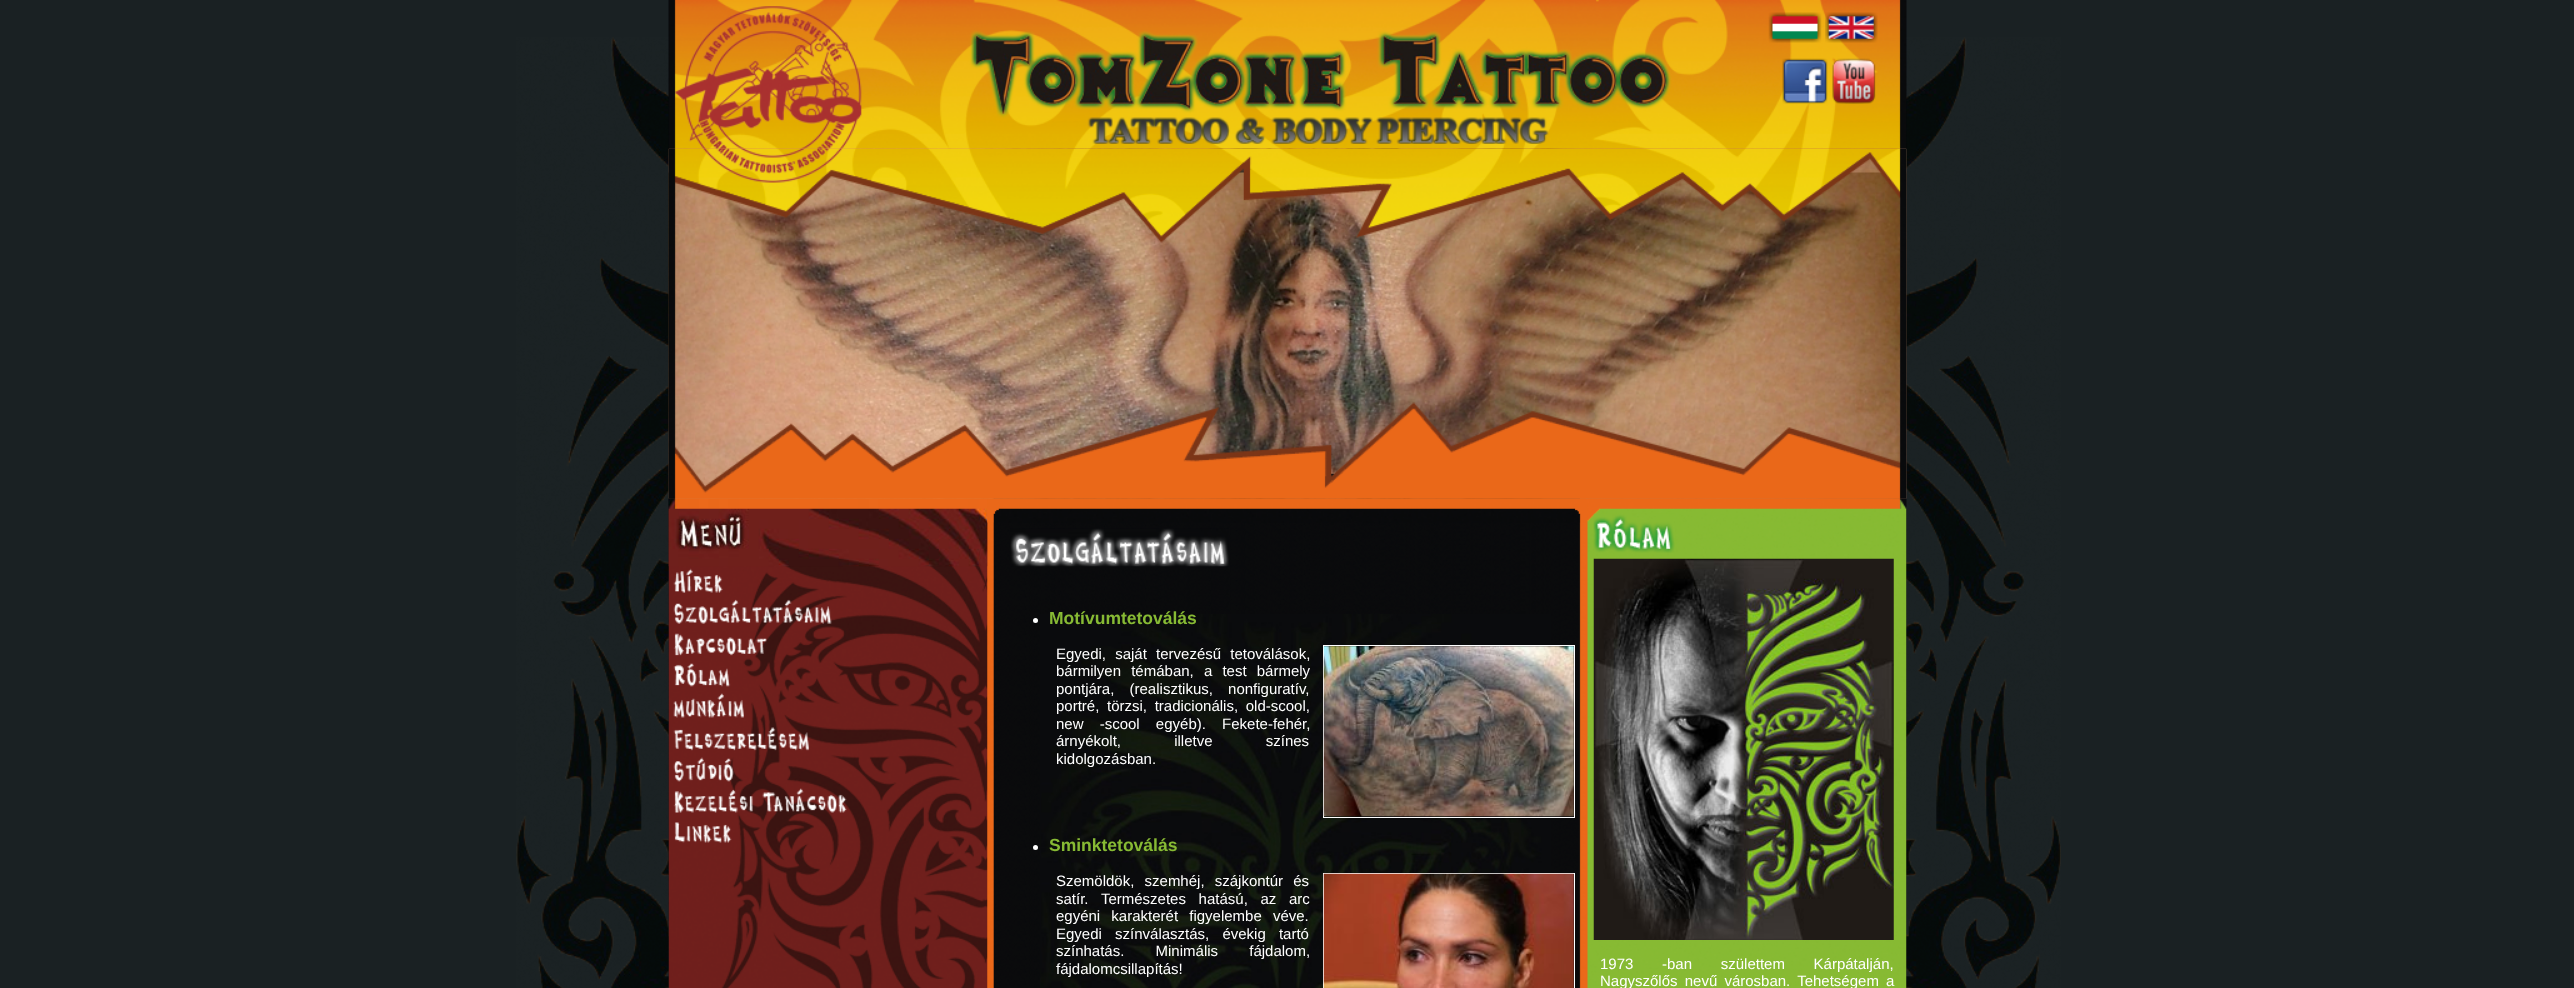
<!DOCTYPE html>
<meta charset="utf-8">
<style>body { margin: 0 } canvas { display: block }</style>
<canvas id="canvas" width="2574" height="988"></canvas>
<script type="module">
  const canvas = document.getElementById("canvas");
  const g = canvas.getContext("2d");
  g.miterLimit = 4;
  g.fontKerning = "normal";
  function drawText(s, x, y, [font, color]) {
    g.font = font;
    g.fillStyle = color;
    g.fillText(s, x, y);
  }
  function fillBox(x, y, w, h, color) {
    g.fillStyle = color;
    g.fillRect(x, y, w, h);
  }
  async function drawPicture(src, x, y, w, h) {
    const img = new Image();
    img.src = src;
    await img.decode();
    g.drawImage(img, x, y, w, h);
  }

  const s1 = ["bold 17.5px Liberation Sans", "#87BA34"];
  const s2 = ["15px Liberation Sans", "#FFFFFF"];

  fillBox(0, 0, 2574, 988, "#1A2123");
  await drawPicture("pic1.png", 516, 37, 1545, 951);
  await drawPicture("pic2.png", 668, 0, 1239, 988);
  await drawPicture("pic3.png", 668, 0, 1239, 149);
  await drawPicture("pic4.png", 1768, 12, 54, 31);
  await drawPicture("pic5.png", 1825, 12, 53, 31);
  await drawPicture("pic6.png", 1782, 58, 46, 46);
  await drawPicture("pic7.png", 1832, 58, 44, 46);
  await drawPicture("pic8.png", 668, 148, 1239, 351);
  await drawPicture("pic10.png", 668, 498, 320, 490);
  await drawPicture("pic11.png", 668, 498, 320, 69);
  await drawPicture("pic21.png", 987, 498, 599, 490);
  await drawPicture("pic22.png", 987, 498, 599, 25);
  await drawPicture("pic27.png", 1587, 498, 320, 490);
  await drawPicture("pic9.png", 668, 148, 1239, 351);
  await drawPicture("pic12.png", 673, 568, 50, 25);
  await drawPicture("pic13.png", 673, 599, 159, 25);
  await drawPicture("pic14.png", 673, 633, 94, 23);
  await drawPicture("pic15.png", 673, 663, 58, 24);
  await drawPicture("pic16.png", 673, 693, 71, 25);
  await drawPicture("pic17.png", 673, 727, 136, 24);
  await drawPicture("pic18.png", 673, 757, 61, 25);
  await drawPicture("pic19.png", 673, 788, 174, 25);
  await drawPicture("pic20.png", 674, 822, 58, 21);
  await drawPicture("pic23.png", 1040, 614, 511, 374);
  await drawPicture("pic24.png", 1010, 528, 219, 39);
  g.fillStyle = "#FFFFFF";
  g.beginPath();
  g.arc(1035.5, 620.5, 2.5, 0, Math.PI * 2);
  g.fill();
  drawText("Motívumtetoválás", 1049, 624, s1);
  g.wordSpacing = "5px";
  drawText("Egyedi, saját tervezésű tetoválások,", 1056, 659, s2);
  g.wordSpacing = "6px";
  drawText("bármilyen témában, a test bármely", 1056, 676, s2);
  g.wordSpacing = "11px";
  drawText("pontjára, (realisztikus, nonfiguratív,", 1056, 694, s2);
  g.wordSpacing = "3.5px";
  drawText("portré, törzsi, tradicionális, old-scool,", 1056, 711, s2);
  g.wordSpacing = "12px";
  drawText("new -scool egyéb). Fekete-fehér,", 1056, 729, s2);
  g.wordSpacing = "49px";
  drawText("árnyékolt, illetve színes", 1056, 746, s2);
  g.wordSpacing = "0px";
  drawText("kidolgozásban.", 1056, 764, s2);
  g.strokeStyle = "#FFFFFF";
  g.strokeRect(1323.5, 645.5, 251, 172);
  await drawPicture("pic25.png", 1323, 646, 251, 171);
  g.beginPath();
  g.arc(1035.5, 847.5, 2.5, 0, Math.PI * 2);
  g.fill();
  drawText("Sminktetoválás", 1049, 851, s1);
  g.wordSpacing = "6px";
  drawText("Szemöldök, szemhéj, szájkontúr és", 1056, 886, s2);
  g.wordSpacing = "8.5px";
  drawText("satír. Természetes hatású, az arc", 1056, 904, s2);
  g.wordSpacing = "7px";
  drawText("egyéni karakterét figyelembe véve.", 1056, 921, s2);
  g.wordSpacing = "9px";
  drawText("Egyedi színválasztás, évekig tartó", 1056, 939, s2);
  g.wordSpacing = "27px";
  drawText("színhatás. Minimális fájdalom,", 1056, 956, s2);
  g.wordSpacing = "0px";
  drawText("fájdalomcsillapítás!", 1056, 974, s2);
  g.strokeRect(1323.5, 873.5, 251, 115);
  await drawPicture("pic26.png", 1323, 873, 251, 115);
  await drawPicture("pic28.png", 1593, 513, 82, 40);
  await drawPicture("pic29.png", 1593, 558, 301, 382);
  g.wordSpacing = "24.5px";
  drawText("1973 -ban születtem Kárpátalján,", 1600, 969, s2);
  g.wordSpacing = "3px";
  drawText("Nagyszőlős nevű városban. Tehetségem a", 1600, 986, s2);
</script>
